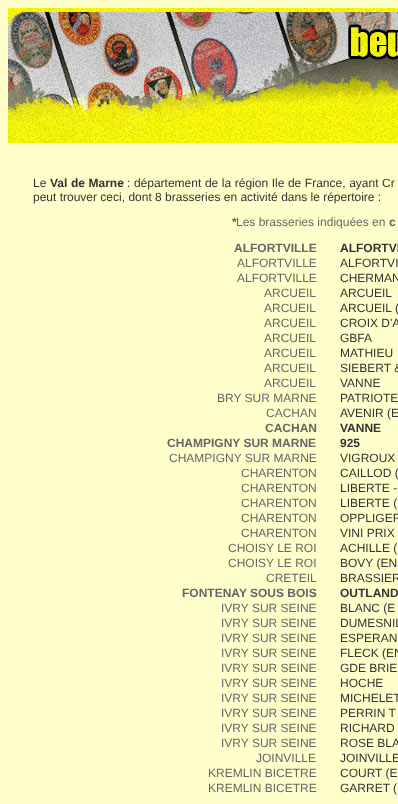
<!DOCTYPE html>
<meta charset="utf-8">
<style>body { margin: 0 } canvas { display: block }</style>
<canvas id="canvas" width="398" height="804"></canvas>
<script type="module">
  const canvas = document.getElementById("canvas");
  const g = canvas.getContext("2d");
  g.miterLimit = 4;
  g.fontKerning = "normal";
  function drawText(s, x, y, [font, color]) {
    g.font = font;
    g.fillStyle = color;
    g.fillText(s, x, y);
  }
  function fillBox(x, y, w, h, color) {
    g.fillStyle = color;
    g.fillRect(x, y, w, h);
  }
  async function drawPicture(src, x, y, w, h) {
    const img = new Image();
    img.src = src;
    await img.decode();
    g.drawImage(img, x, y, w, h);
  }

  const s1 = ["12px Liberation Sans", "#333333"];
  const s2 = ["bold 12px Liberation Sans", "#333333"];
  const s3 = ["bold 12px Liberation Sans", "#666666"];
  const s4 = ["12px Liberation Sans", "#666666"];

  fillBox(0, 0, 398, 804, "#FFFFCC");
  await drawPicture("pic1.png", 8, 8, 390, 135);
  drawText("Le", 33, 187, s1);
  g.wordSpacing = "0.25px";
  drawText("Val de Marne", 50, 187, s2);
  drawText(": département de la région Ile de France, ayant Cr", 127, 187, s1);
  g.wordSpacing = "0px";
  drawText("peut trouver ceci, dont 8 brasseries en activité dans le répertoire :", 33, 201, s1);
  drawText("*", 232, 226, s3);
  drawText("Les brasseries indiquées en", 236, 226, s4);
  drawText("c", 389, 226, s3);
  drawText("ALFORTVILLE", 234, 252, s3);
  drawText("ALFORTVI", 340, 252, s2);
  drawText("ALFORTVILLE", 237, 267, s4);
  drawText("ALFORTVI", 340, 267, s1);
  drawText("ALFORTVILLE", 237, 282, s4);
  drawText("CHERMAN", 340, 282, s1);
  drawText("ARCUEIL", 264, 297, s4);
  drawText("ARCUEIL", 340, 297, s1);
  drawText("ARCUEIL", 264, 312, s4);
  drawText("ARCUEIL (", 340, 312, s1);
  drawText("ARCUEIL", 264, 327, s4);
  drawText("CROIX D'A", 340, 327, s1);
  drawText("ARCUEIL", 264, 342, s4);
  drawText("GBFA", 340, 342, s1);
  drawText("ARCUEIL", 264, 357, s4);
  drawText("MATHIEU", 340, 357, s1);
  drawText("ARCUEIL", 264, 372, s4);
  drawText("SIEBERT &", 340, 372, s1);
  drawText("ARCUEIL", 264, 387, s4);
  drawText("VANNE", 340, 387, s1);
  drawText("BRY SUR MARNE", 217, 402, s4);
  drawText("PATRIOTE", 340, 402, s1);
  drawText("CACHAN", 266, 417, s4);
  drawText("AVENIR (E", 340, 417, s1);
  drawText("CACHAN", 265, 432, s3);
  drawText("VANNE", 340, 432, s2);
  drawText("CHAMPIGNY SUR MARNE", 167, 447, s3);
  drawText("925", 340, 447, s2);
  drawText("CHAMPIGNY SUR MARNE", 169, 462, s4);
  drawText("VIGROUX", 340, 462, s1);
  drawText("CHARENTON", 241, 477, s4);
  drawText("CAILLOD (", 340, 477, s1);
  drawText("CHARENTON", 241, 492, s4);
  drawText("LIBERTE -", 340, 492, s1);
  drawText("CHARENTON", 241, 507, s4);
  drawText("LIBERTE (", 340, 507, s1);
  drawText("CHARENTON", 241, 522, s4);
  drawText("OPPLIGER", 340, 522, s1);
  drawText("CHARENTON", 241, 537, s4);
  drawText("VINI PRIX", 340, 537, s1);
  drawText("CHOISY LE ROI", 228, 552, s4);
  drawText("ACHILLE (", 340, 552, s1);
  drawText("CHOISY LE ROI", 228, 567, s4);
  drawText("BOVY (EN", 340, 567, s1);
  drawText("CRETEIL", 266, 582, s4);
  drawText("BRASSIER", 340, 582, s1);
  drawText("FONTENAY SOUS BOIS", 182, 597, s3);
  drawText("OUTLAND", 340, 597, s2);
  drawText("IVRY SUR SEINE", 221, 612, s4);
  drawText("BLANC (E", 340, 612, s1);
  drawText("IVRY SUR SEINE", 221, 627, s4);
  drawText("DUMESNIL", 340, 627, s1);
  drawText("IVRY SUR SEINE", 221, 642, s4);
  drawText("ESPERAN", 340, 642, s1);
  drawText("IVRY SUR SEINE", 221, 657, s4);
  drawText("FLECK (EN", 340, 657, s1);
  drawText("IVRY SUR SEINE", 221, 672, s4);
  drawText("GDE BRIE", 340, 672, s1);
  drawText("IVRY SUR SEINE", 221, 687, s4);
  drawText("HOCHE", 340, 687, s1);
  drawText("IVRY SUR SEINE", 221, 702, s4);
  drawText("MICHELET", 340, 702, s1);
  drawText("IVRY SUR SEINE", 221, 717, s4);
  drawText("PERRIN T", 340, 717, s1);
  drawText("IVRY SUR SEINE", 221, 732, s4);
  drawText("RICHARD", 340, 732, s1);
  drawText("IVRY SUR SEINE", 221, 747, s4);
  drawText("ROSE BLA", 340, 747, s1);
  drawText("JOINVILLE", 256, 762, s4);
  drawText("JOINVILLE", 340, 762, s1);
  drawText("KREMLIN BICETRE", 208, 777, s4);
  drawText("COURT (E", 340, 777, s1);
  drawText("KREMLIN BICETRE", 208, 792, s4);
  drawText("GARRET (", 340, 792, s1);
</script>
